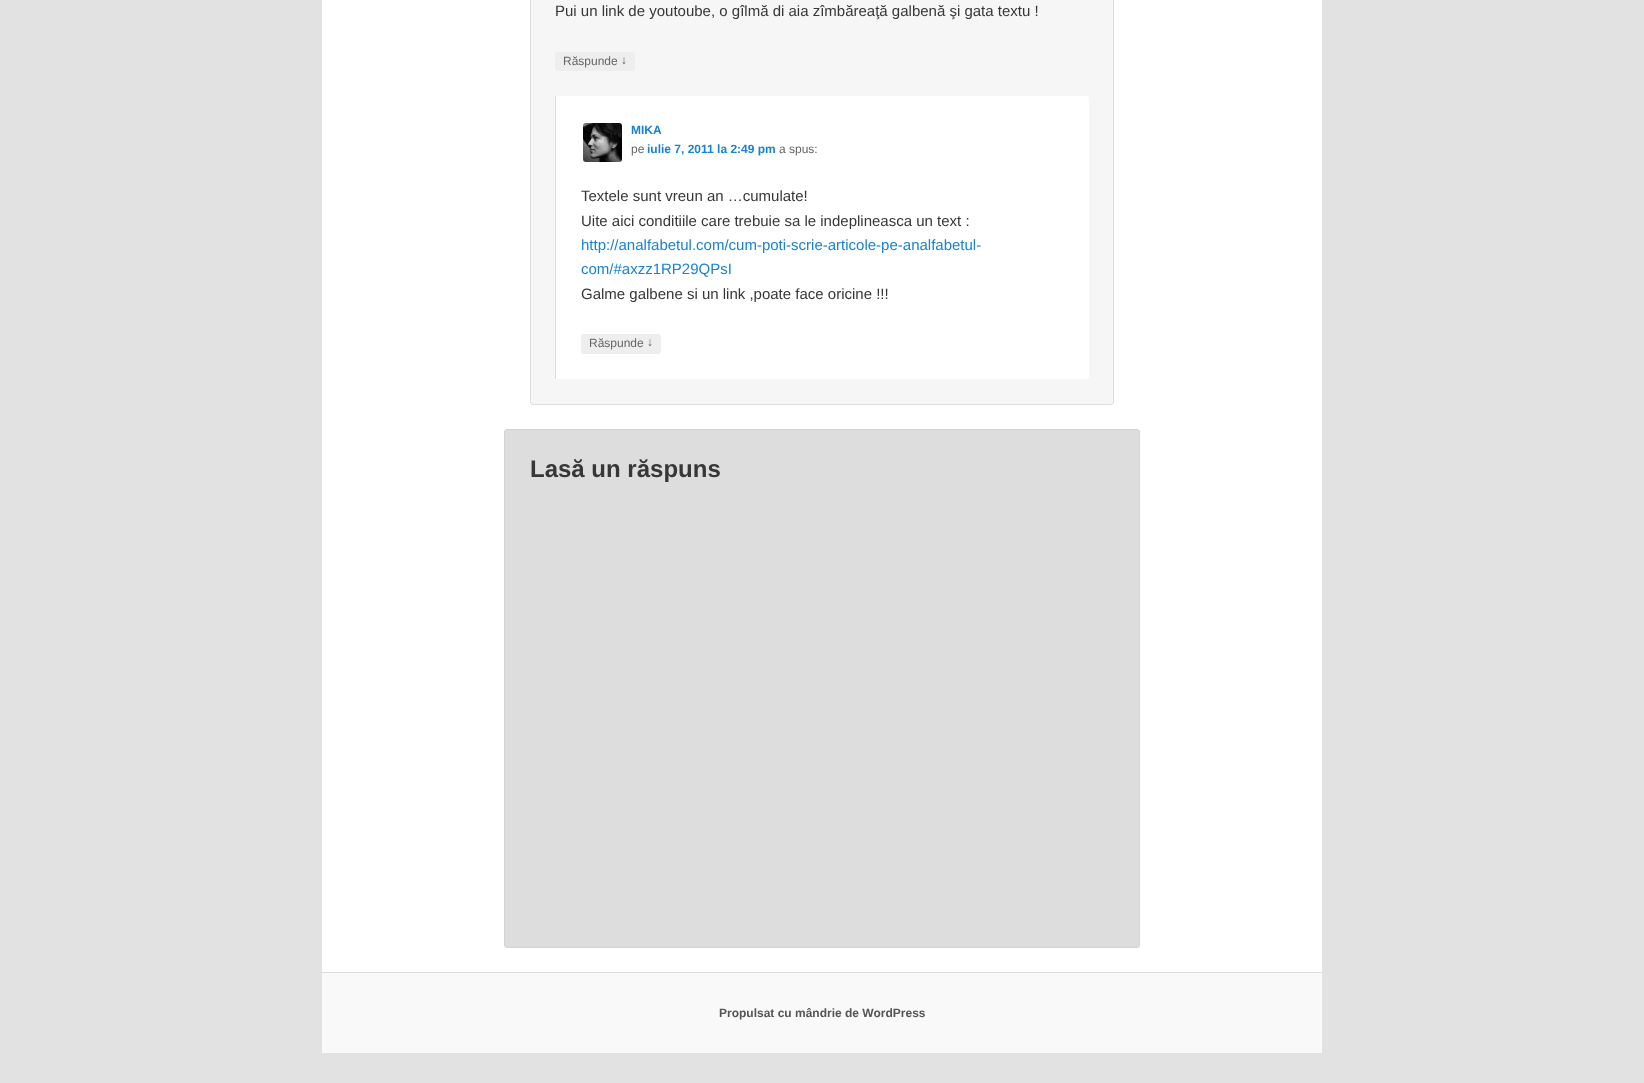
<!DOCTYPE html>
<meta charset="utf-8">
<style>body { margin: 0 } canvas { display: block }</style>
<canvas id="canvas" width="1644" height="1083"></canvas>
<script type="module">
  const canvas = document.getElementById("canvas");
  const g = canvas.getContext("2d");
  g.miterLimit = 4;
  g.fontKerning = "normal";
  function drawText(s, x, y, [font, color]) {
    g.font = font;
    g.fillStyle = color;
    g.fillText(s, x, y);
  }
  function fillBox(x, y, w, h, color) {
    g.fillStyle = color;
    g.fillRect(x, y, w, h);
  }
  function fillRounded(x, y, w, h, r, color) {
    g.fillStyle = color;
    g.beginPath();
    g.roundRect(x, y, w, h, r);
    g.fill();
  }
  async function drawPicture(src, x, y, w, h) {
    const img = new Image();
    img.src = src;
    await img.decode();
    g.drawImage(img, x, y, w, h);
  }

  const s1 = ["15px Liberation Sans", "#373737"];
  const s2 = ["12px Liberation Sans", "#666666"];
  const s3 = ["bold 12px Liberation Sans", "#1982D1"];
  const s4 = ["15px Liberation Sans", "#1982D1"];
  const s5 = ["bold 24px Liberation Sans", "#373737"];
  const s6 = ["bold 12px Liberation Sans", "#555555"];

  fillBox(0, 0, 1644, 1083, "#E2E2E2");
  fillBox(322, 0, 1000, 972, "#FFFFFF");
  g.fillStyle = "#F6F6F6";
  g.beginPath();
  g.roundRect(530.5, -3.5, 583, 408, 2.5);
  g.fill();
  g.strokeStyle = "#DDDDDD";
  g.stroke();
  drawText("Pui un link de youtoube, o gîlmă di aia zîmbăreaţă galbenă şi gata textu !", 555, 16, s1);
  fillRounded(555, 52, 80, 19, 3, "#EEEEEE");
  drawText("Răspunde", 563, 65, s2);
  drawText("↓", 621, 64, s2);
  g.fillStyle = "#FFFFFF";
  g.beginPath();
  g.roundRect(555, 96, 534, 283, [0, 3, 3, 0]);
  g.fill();
  fillBox(555, 96, 1, 283, "#DDDDDD");
  await drawPicture("pic1.png", 583, 123, 39, 39);
  drawText("MIKA", 631, 134, s3);
  drawText("pe", 631, 153, s2);
  drawText("iulie 7, 2011 la 2:49 pm", 647, 153, s3);
  drawText("a spus:", 779, 153, s2);
  drawText("Textele sunt vreun an …cumulate!", 581, 201, s1);
  drawText("Uite aici conditiile care trebuie sa le indeplineasca un text :", 581, 226, s1);
  drawText("http://analfabetul.com/cum-poti-scrie-articole-pe-analfabetul-", 581, 250, s4);
  drawText("com/#axzz1RP29QPsI", 581, 274, s4);
  drawText("Galme galbene si un link ,poate face oricine !!!", 581, 299, s1);
  fillRounded(581, 334, 80, 20, 3, "#EEEEEE");
  drawText("Răspunde", 589, 347, s2);
  drawText("↓", 647, 346, s2);
  g.fillStyle = "#DDDDDD";
  g.beginPath();
  g.roundRect(504.5, 429.5, 635, 518, 2.5);
  g.fill();
  g.strokeStyle = "#D3D3D3";
  g.stroke();
  drawText("Lasă un răspuns", 530, 477, s5);
  fillBox(322, 973, 1000, 80, "#F9F9F9");
  fillBox(322, 972, 1000, 1, "#DDDDDD");
  drawText("Propulsat cu mândrie de WordPress", 719, 1017, s6);
</script>
